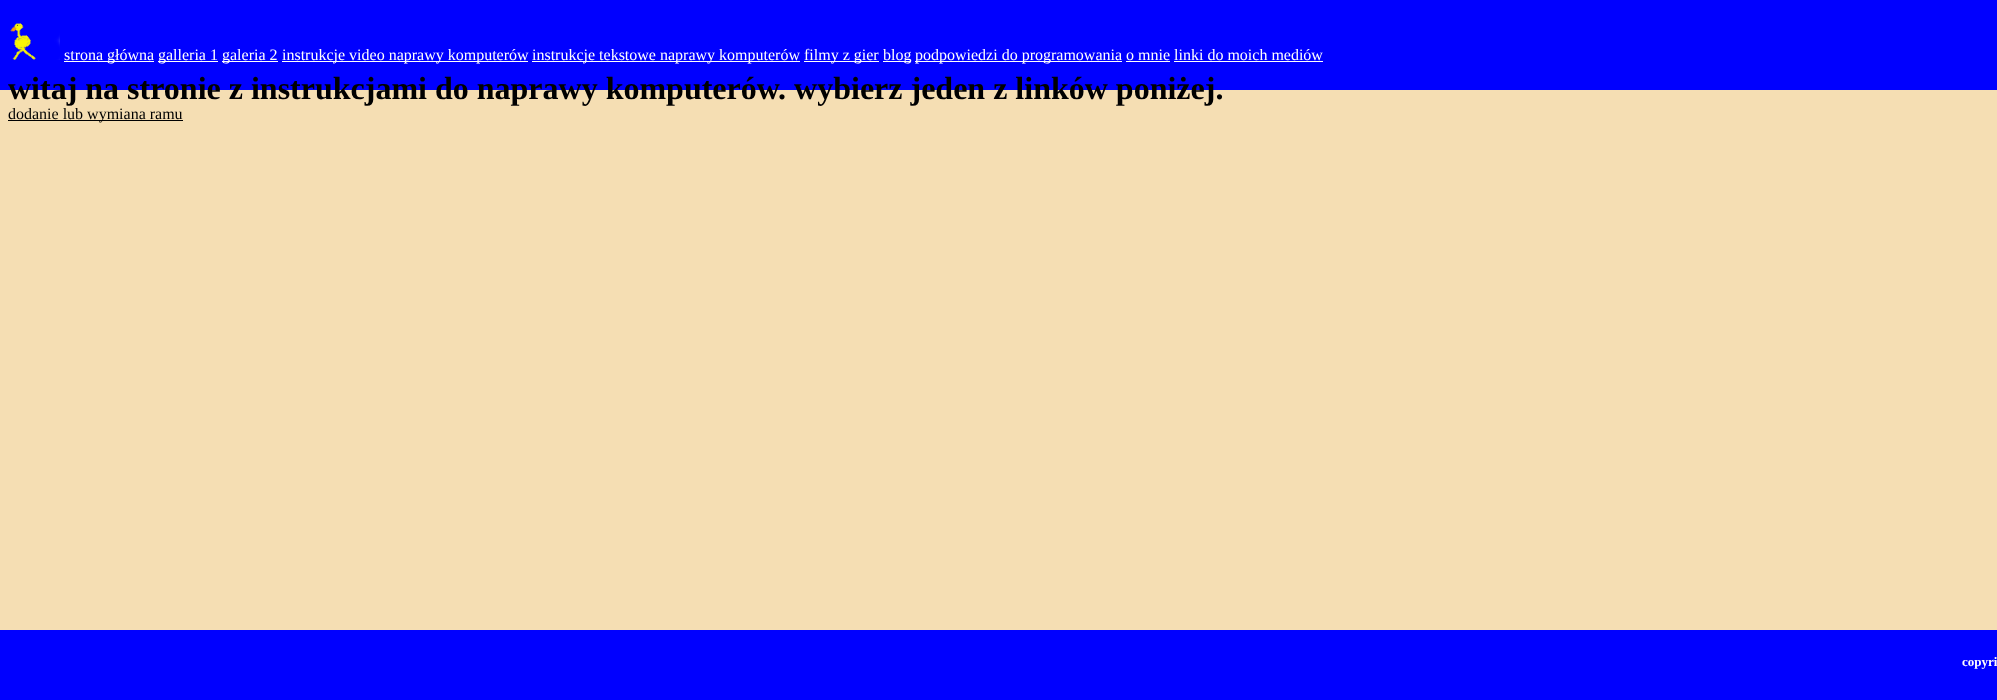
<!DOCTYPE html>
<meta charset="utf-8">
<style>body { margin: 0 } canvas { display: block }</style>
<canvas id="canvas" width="1997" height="700"></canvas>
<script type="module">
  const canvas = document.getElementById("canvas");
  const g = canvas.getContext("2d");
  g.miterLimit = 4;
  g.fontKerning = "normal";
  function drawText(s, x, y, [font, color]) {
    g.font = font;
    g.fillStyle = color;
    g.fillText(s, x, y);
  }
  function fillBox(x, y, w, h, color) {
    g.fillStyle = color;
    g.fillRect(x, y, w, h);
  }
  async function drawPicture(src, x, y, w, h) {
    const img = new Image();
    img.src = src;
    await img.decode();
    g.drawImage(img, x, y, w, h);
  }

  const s1 = ["16px Liberation Serif", "#FFFFFF"];
  const s2 = ["bold 32px Liberation Serif", "#000000"];
  const s3 = ["16px Liberation Serif", "#000000"];
  const s4 = ["bold 13px Liberation Serif", "#FFFFFF"];

  fillBox(0, 0, 1997, 700, "#F5DEB3");
  fillBox(0, 0, 1997, 90, "#0000FF");
  await drawPicture("pic1.png", 10, 23, 50, 37);
  fillBox(64, 61, 90, 1, "#FFFFFF");
  drawText("strona główna", 64, 60, s1);
  fillBox(158, 61, 60, 1, "#FFFFFF");
  drawText("galleria 1", 158, 60, s1);
  fillBox(222, 61, 56, 1, "#FFFFFF");
  drawText("galeria 2", 222, 60, s1);
  fillBox(282, 61, 246, 1, "#FFFFFF");
  drawText("instrukcje video naprawy komputerów", 282, 60, s1);
  fillBox(532, 61, 268, 1, "#FFFFFF");
  drawText("instrukcje tekstowe naprawy komputerów", 532, 60, s1);
  fillBox(804, 61, 75, 1, "#FFFFFF");
  drawText("filmy z gier", 804, 60, s1);
  fillBox(883, 61, 28, 1, "#FFFFFF");
  drawText("blog", 883, 60, s1);
  fillBox(915, 61, 207, 1, "#FFFFFF");
  drawText("podpowiedzi do programowania o mnie linki do moich mediów", 915, 60, s1);
  fillBox(1126, 61, 44, 1, "#FFFFFF");
  fillBox(1174, 61, 149, 1, "#FFFFFF");
  drawText("witaj na stronie z instrukcjami do naprawy komputerów. wybierz jeden z linków poniżej.", 8, 99, s2);
  fillBox(8, 120, 175, 1, "#000000");
  drawText("dodanie lub wymiana ramu", 8, 119, s3);
  fillBox(0, 630, 1997, 70, "#0000FF");
  drawText("copyri", 1962, 666, s4);
</script>
